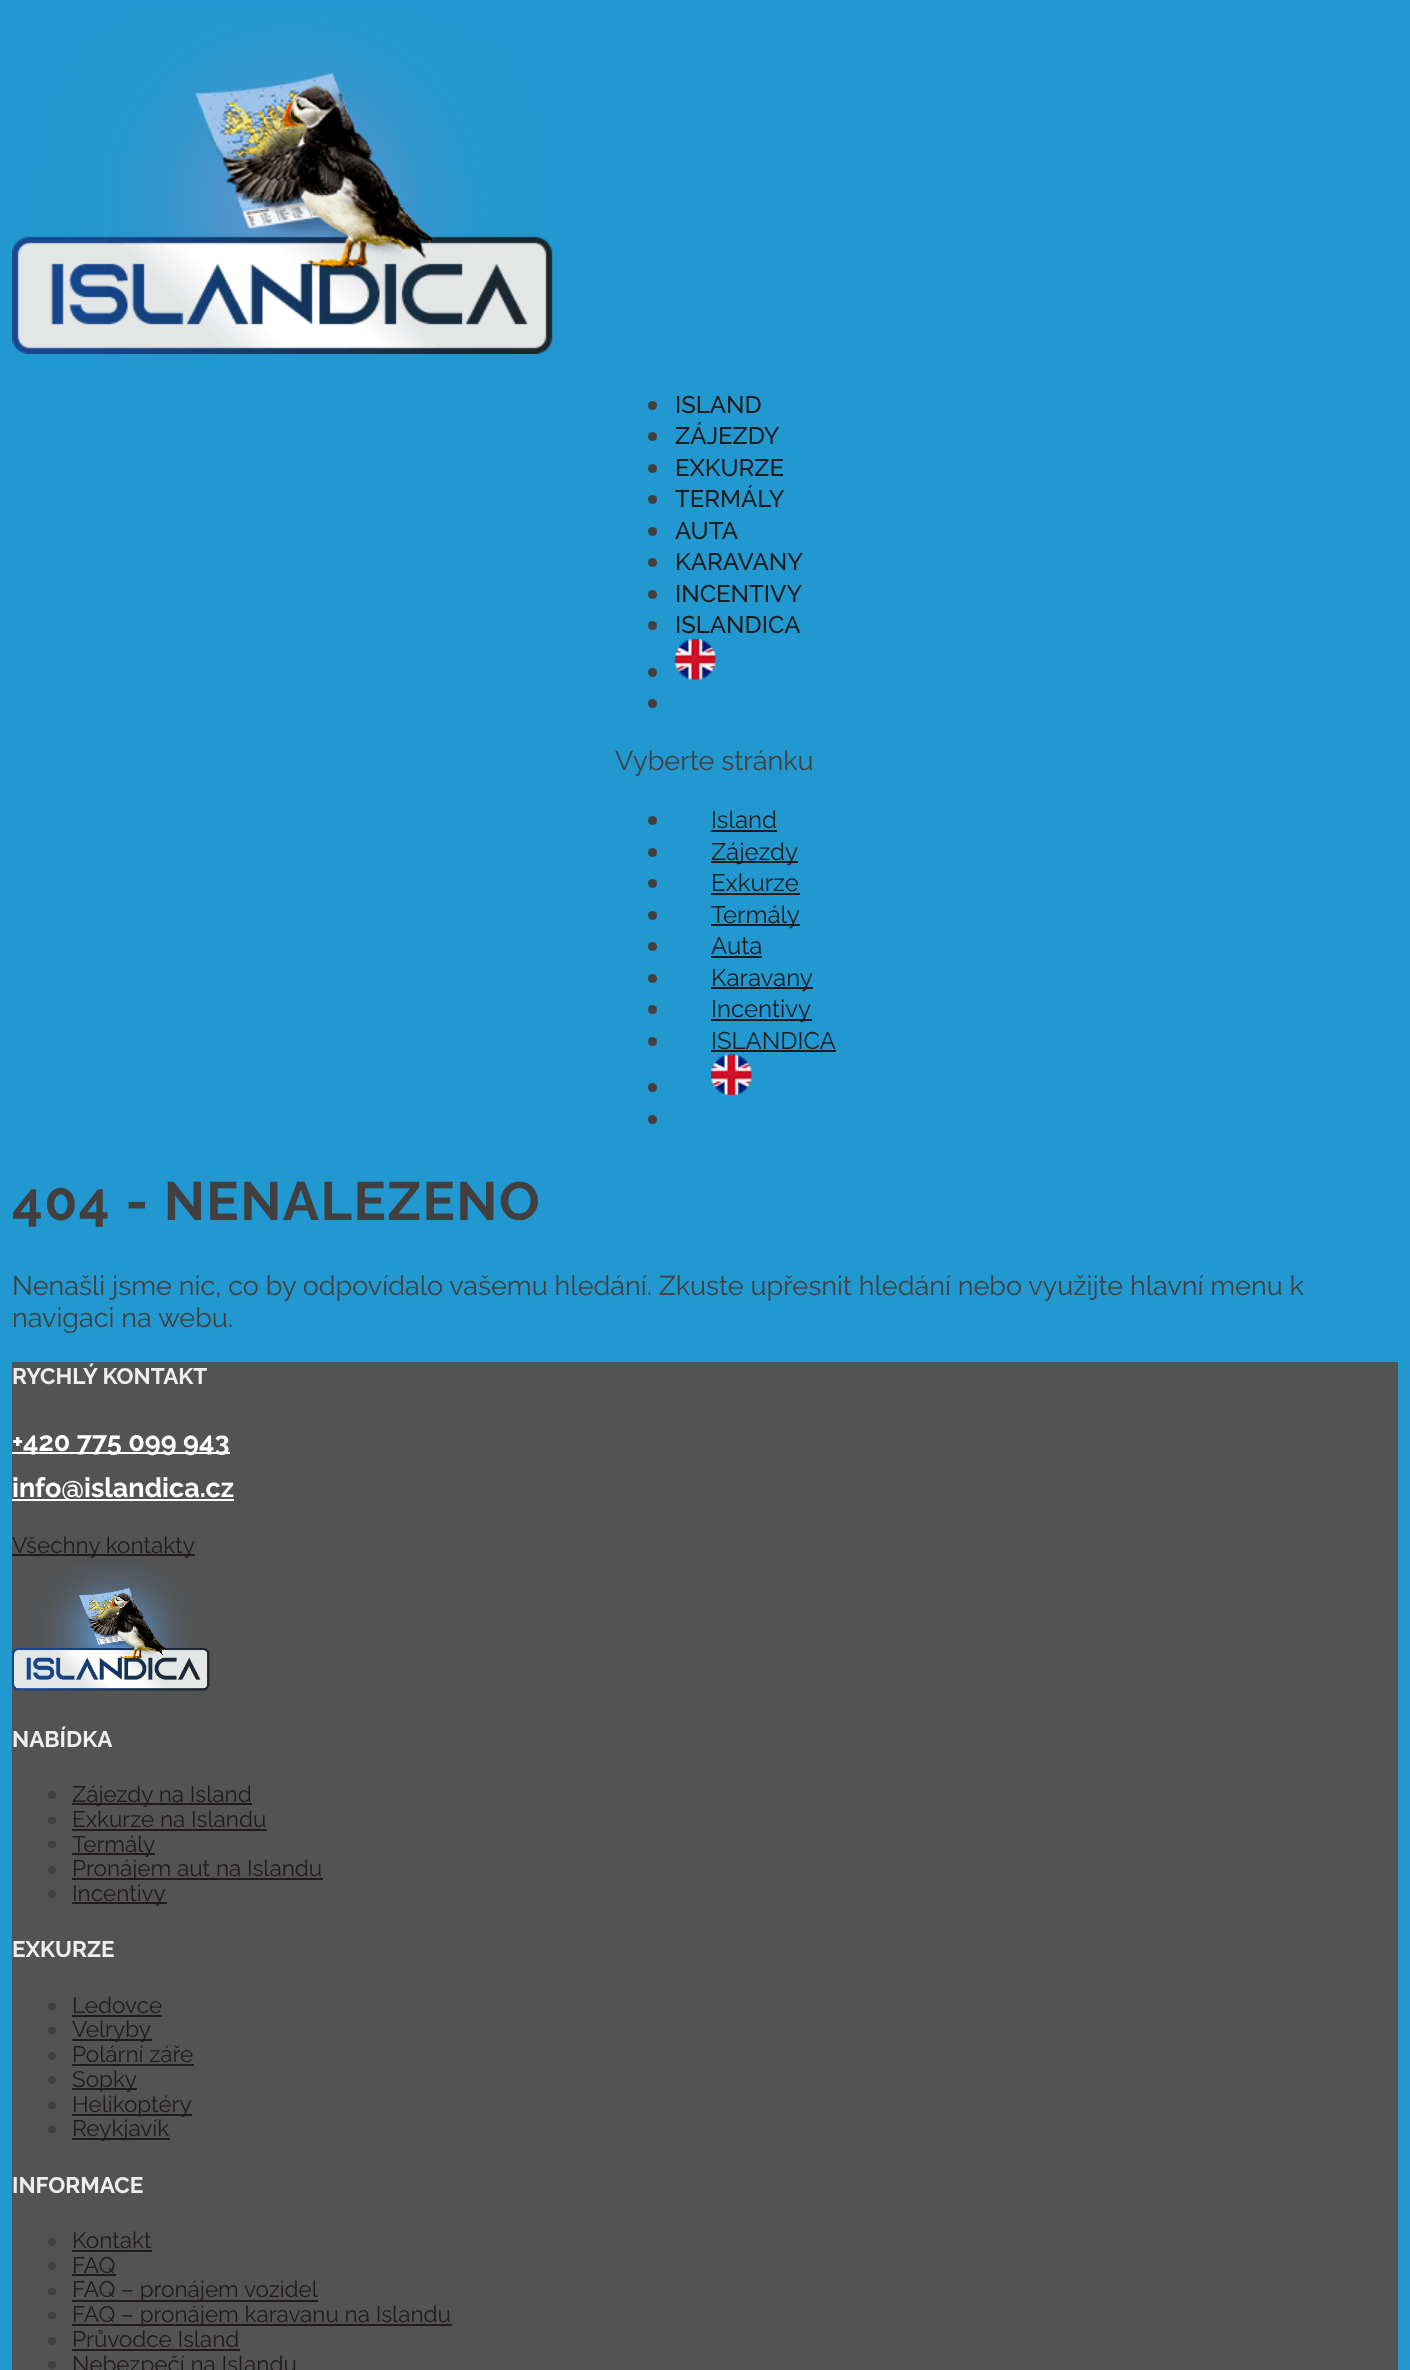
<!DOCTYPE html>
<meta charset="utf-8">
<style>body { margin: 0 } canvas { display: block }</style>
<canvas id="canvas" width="1410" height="2370"></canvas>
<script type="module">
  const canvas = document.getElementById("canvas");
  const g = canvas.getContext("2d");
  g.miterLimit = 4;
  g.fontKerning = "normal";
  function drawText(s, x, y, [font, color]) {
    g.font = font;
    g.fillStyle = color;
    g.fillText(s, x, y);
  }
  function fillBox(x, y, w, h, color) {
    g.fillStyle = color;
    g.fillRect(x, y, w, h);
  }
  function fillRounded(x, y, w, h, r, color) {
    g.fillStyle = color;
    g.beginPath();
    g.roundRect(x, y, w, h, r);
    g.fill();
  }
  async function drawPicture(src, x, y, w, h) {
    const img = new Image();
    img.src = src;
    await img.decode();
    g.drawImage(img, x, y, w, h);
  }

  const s1 = ["100 24px Raleway", "#211B1B"];
  const s2 = ["100 27px 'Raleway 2'", "#443F3F"];
  const s3 = ["100 24px 'Raleway 2'", "#211B1B"];
  const s4 = ["100 54px 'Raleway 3'", "#443F3F"];
  const s5 = ["100 22.5px 'Raleway 3'", "#EEEEEE"];
  const s6 = ["100 27px 'Raleway 3'", "#FFFFFF"];
  const s7 = ["100 22.5px 'Raleway 2'", "#211B1B"];

  fillBox(0, 0, 1410, 2370, "#2198CF");
  await drawPicture("pic1.png", 12, 11, 541, 343);
  g.fillStyle = "#443F3F";
  g.beginPath();
  g.arc(652.5, 405.5, 4.5, 0, Math.PI * 2);
  g.fill();
  drawText("ISLAND", 675, 413, s1);
  g.fillStyle = "#443F3F";
  g.beginPath();
  g.arc(652.5, 436.5, 4.5, 0, Math.PI * 2);
  g.fill();
  drawText("ZÁJEZDY", 675, 444, s1);
  g.fillStyle = "#443F3F";
  g.beginPath();
  g.arc(652.5, 468.5, 4.5, 0, Math.PI * 2);
  g.fill();
  drawText("EXKURZE", 675, 476, s1);
  g.fillStyle = "#443F3F";
  g.beginPath();
  g.arc(652.5, 499.5, 4.5, 0, Math.PI * 2);
  g.fill();
  drawText("TERMÁLY", 675, 507, s1);
  g.fillStyle = "#443F3F";
  g.beginPath();
  g.arc(652.5, 531.5, 4.5, 0, Math.PI * 2);
  g.fill();
  drawText("AUTA", 675, 539, s1);
  g.fillStyle = "#443F3F";
  g.beginPath();
  g.arc(652.5, 562.5, 4.5, 0, Math.PI * 2);
  g.fill();
  drawText("KARAVANY", 675, 570, s1);
  g.fillStyle = "#443F3F";
  g.beginPath();
  g.arc(652.5, 594.5, 4.5, 0, Math.PI * 2);
  g.fill();
  drawText("INCENTIVY", 675, 602, s1);
  g.fillStyle = "#443F3F";
  g.beginPath();
  g.arc(652.5, 625.5, 4.5, 0, Math.PI * 2);
  g.fill();
  drawText("ISLANDICA", 675, 633, s1);
  g.fillStyle = "#443F3F";
  g.beginPath();
  g.arc(652.5, 672.5, 4.5, 0, Math.PI * 2);
  g.fill();
  await drawPicture("pic2.png", 675, 639, 41, 41);
  g.beginPath();
  g.arc(652.5, 703.5, 4.5, 0, Math.PI * 2);
  g.fill();
  drawText("Vyberte stránku", 615, 770, s2);
  g.beginPath();
  g.arc(652.5, 820.5, 4.5, 0, Math.PI * 2);
  g.fill();
  drawText("Island", 711, 828, s3);
  fillBox(711, 830, 66, 2, "#211B1B");
  g.fillStyle = "#443F3F";
  g.beginPath();
  g.arc(652.5, 852.5, 4.5, 0, Math.PI * 2);
  g.fill();
  fillBox(711, 861, 87, 2, "#211B1B");
  drawText("Zájezdy", 711, 860, s3);
  g.fillStyle = "#443F3F";
  g.beginPath();
  g.arc(652.5, 883.5, 4.5, 0, Math.PI * 2);
  g.fill();
  drawText("Exkurze", 711, 891, s3);
  fillBox(711, 893, 89, 2, "#211B1B");
  g.fillStyle = "#443F3F";
  g.beginPath();
  g.arc(652.5, 915.5, 4.5, 0, Math.PI * 2);
  g.fill();
  fillBox(711, 924, 89, 2, "#211B1B");
  drawText("Termály", 711, 923, s3);
  g.fillStyle = "#443F3F";
  g.beginPath();
  g.arc(652.5, 946.5, 4.5, 0, Math.PI * 2);
  g.fill();
  drawText("Auta", 711, 954, s3);
  fillBox(711, 956, 51, 2, "#211B1B");
  g.fillStyle = "#443F3F";
  g.beginPath();
  g.arc(652.5, 978.5, 4.5, 0, Math.PI * 2);
  g.fill();
  fillBox(711, 987, 102, 2, "#211B1B");
  drawText("Karavany", 711, 986, s3);
  g.fillStyle = "#443F3F";
  g.beginPath();
  g.arc(652.5, 1009.5, 4.5, 0, Math.PI * 2);
  g.fill();
  fillBox(711, 1019, 101, 2, "#211B1B");
  drawText("Incentivy", 711, 1017, s3);
  g.fillStyle = "#443F3F";
  g.beginPath();
  g.arc(652.5, 1041.5, 4.5, 0, Math.PI * 2);
  g.fill();
  drawText("ISLANDICA", 711, 1049, s3);
  fillBox(711, 1050, 125, 2, "#211B1B");
  g.fillStyle = "#443F3F";
  g.beginPath();
  g.arc(652.5, 1087.5, 4.5, 0, Math.PI * 2);
  g.fill();
  await drawPicture("pic3.png", 711, 1054, 41, 41);
  g.beginPath();
  g.arc(652.5, 1119.5, 4.5, 0, Math.PI * 2);
  g.fill();
  g.letterSpacing = "1.4px";
  drawText("404 - NENALEZENO", 12, 1220, s4);
  g.letterSpacing = "0px";
  drawText("Nenašli jsme nic, co by odpovídalo vašemu hledání. Zkuste upřesnit hledání nebo využijte hlavní menu k", 12, 1295, s2);
  drawText("navigaci na webu.", 12, 1327, s2);
  fillBox(12, 1362, 1386, 1008, "#535353");
  drawText("RYCHLÝ KONTAKT", 12, 1384, s5);
  fillBox(12, 1452, 218, 2, "#FFFFFF");
  drawText("+420 775 099 943", 12, 1451, s6);
  fillBox(12, 1499, 222, 2, "#FFFFFF");
  drawText("info@islandica.cz", 12, 1497, s6);
  fillBox(12, 1554, 183, 2, "#211B1B");
  drawText("Všechny kontakty", 12, 1553, s7);
  await drawPicture("pic4.png", 12, 1560, 198, 131);
  drawText("NABÍDKA", 12, 1747, s5);
  g.fillStyle = "#443F3F";
  g.beginPath();
  g.arc(52, 1795, 4, 0, Math.PI * 2);
  g.fill();
  fillBox(72, 1803, 180, 2, "#211B1B");
  drawText("Zájezdy na Island", 72, 1802, s7);
  fillRounded(48, 1817, 8, 7, 3.5, "#443F3F");
  drawText("Exkurze na Islandu", 72, 1827, s7);
  fillBox(72, 1829, 195, 2, "#211B1B");
  fillRounded(48, 1841, 8, 7, 3.5, "#443F3F");
  fillBox(72, 1853, 83, 2, "#211B1B");
  drawText("Termály", 72, 1852, s7);
  g.fillStyle = "#443F3F";
  g.beginPath();
  g.arc(52, 1870, 4, 0, Math.PI * 2);
  g.fill();
  fillBox(72, 1878, 251, 2, "#211B1B");
  drawText("Pronájem aut na Islandu", 72, 1876, s7);
  g.fillStyle = "#443F3F";
  g.beginPath();
  g.arc(52, 1894, 4, 0, Math.PI * 2);
  g.fill();
  fillBox(72, 1902, 95, 2, "#211B1B");
  drawText("Incentivy", 72, 1901, s7);
  drawText("EXKURZE", 12, 1957, s5);
  fillRounded(48, 2003, 8, 7, 3.5, "#443F3F");
  drawText("Ledovce", 72, 2013, s7);
  fillBox(72, 2015, 90, 2, "#211B1B");
  fillRounded(48, 2027, 8, 7, 3.5, "#443F3F");
  fillBox(72, 2039, 80, 2, "#211B1B");
  drawText("Velryby", 72, 2037, s7);
  g.fillStyle = "#443F3F";
  g.beginPath();
  g.arc(52, 2056, 4, 0, Math.PI * 2);
  g.fill();
  drawText("Polární záře", 72, 2062, s7);
  fillBox(72, 2064, 122, 2, "#211B1B");
  g.fillStyle = "#443F3F";
  g.beginPath();
  g.arc(52, 2080, 4, 0, Math.PI * 2);
  g.fill();
  fillBox(72, 2088, 65, 2, "#211B1B");
  drawText("Sopky", 72, 2087, s7);
  fillRounded(48, 2102, 8, 7, 3.5, "#443F3F");
  fillBox(72, 2114, 120, 2, "#211B1B");
  drawText("Helikoptéry", 72, 2112, s7);
  fillRounded(48, 2126, 8, 7, 3.5, "#443F3F");
  fillBox(72, 2138, 98, 2, "#211B1B");
  drawText("Reykjavík", 72, 2136, s7);
  drawText("INFORMACE", 12, 2193, s5);
  g.fillStyle = "#443F3F";
  g.beginPath();
  g.arc(52, 2242, 4, 0, Math.PI * 2);
  g.fill();
  drawText("Kontakt", 72, 2248, s7);
  fillBox(72, 2250, 80, 2, "#211B1B");
  g.fillStyle = "#443F3F";
  g.beginPath();
  g.arc(52, 2266, 4, 0, Math.PI * 2);
  g.fill();
  drawText("FAQ", 72, 2273, s7);
  fillBox(72, 2274, 44, 2, "#211B1B");
  fillRounded(48, 2288, 8, 7, 3.5, "#443F3F");
  fillBox(72, 2300, 246, 2, "#211B1B");
  drawText("FAQ – pronájem vozidel", 72, 2297, s7);
  fillRounded(48, 2312, 8, 7, 3.5, "#443F3F");
  fillBox(72, 2324, 380, 2, "#211B1B");
  drawText("FAQ – pronájem karavanu na Islandu", 72, 2322, s7);
  g.fillStyle = "#443F3F";
  g.beginPath();
  g.arc(52, 2341, 4, 0, Math.PI * 2);
  g.fill();
  drawText("Průvodce Island", 72, 2347, s7);
  fillBox(72, 2349, 168, 2, "#211B1B");
  g.fillStyle = "#443F3F";
  g.beginPath();
  g.arc(52, 2365, 4, 0, Math.PI * 2);
  g.fill();
  drawText("Nebezpečí na Islandu", 72, 2372, s7);
</script>
